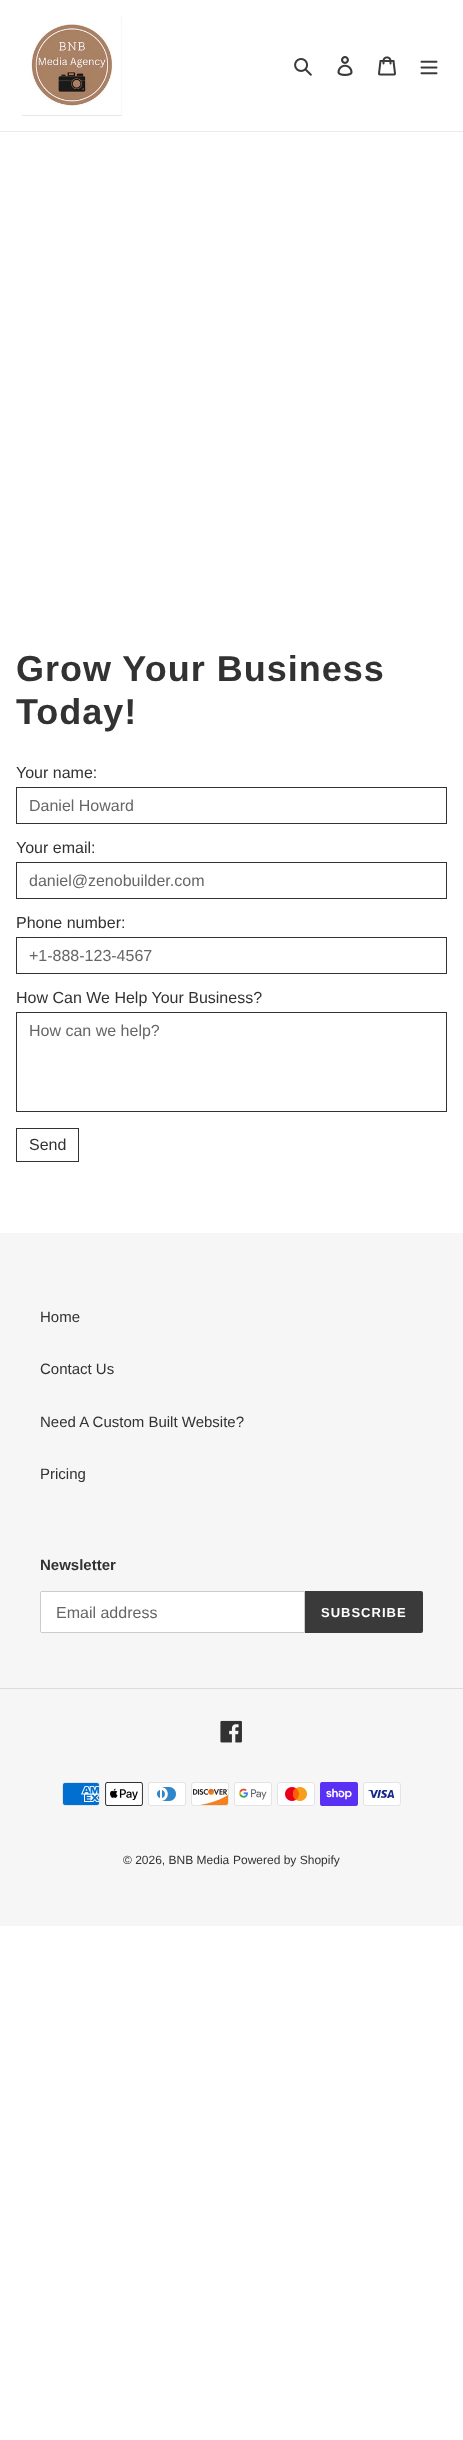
<!DOCTYPE html>
<meta charset="utf-8">
<style>body { margin: 0 } canvas { display: block }</style>
<canvas id="canvas" width="463" height="2440"></canvas>
<script type="module">
  const canvas = document.getElementById("canvas");
  const g = canvas.getContext("2d");
  g.miterLimit = 4;
  g.fontKerning = "normal";
  function drawText(s, x, y, [font, color]) {
    g.font = font;
    g.fillStyle = color;
    g.fillText(s, x, y);
  }
  function fillBox(x, y, w, h, color) {
    g.fillStyle = color;
    g.fillRect(x, y, w, h);
  }
  async function drawPicture(src, x, y, w, h) {
    const img = new Image();
    img.src = src;
    await img.decode();
    g.drawImage(img, x, y, w, h);
  }

  const s1 = ["bold 36px Liberation Sans", "#333232"];
  const s2 = ["16px Liberation Sans", "#333232"];
  const s3 = ["16px Liberation Sans", "#666666"];
  const s4 = ["15px Liberation Sans", "#333232"];
  const s5 = ["bold 15px Liberation Sans", "#333232"];
  const s6 = ["bold 13px Liberation Sans", "#FFFFFF"];
  const s7 = ["12px Liberation Sans", "#333232"];

  fillBox(0, 0, 463, 2440, "#FFFFFF");
  fillBox(0, 131, 463, 1, "#EBEBEB");
  await drawPicture("pic1.png", 22, 15, 100, 101);
  await drawPicture("pic2.png", 294, 58, 18, 18);
  await drawPicture("pic3.png", 337, 56, 16, 20);
  await drawPicture("pic4.png", 378, 56, 18, 20);
  await drawPicture("pic5.png", 420, 60, 18, 15);
  g.letterSpacing = "1px";
  drawText("Grow Your Business", 16, 681, s1);
  drawText("Today!", 16, 724, s1);
  g.letterSpacing = "0px";
  drawText("Your name:", 16, 778, s2);
  g.strokeStyle = "#333333";
  g.strokeRect(16.5, 787.5, 430, 36);
  drawText("Daniel Howard", 29, 811, s3);
  drawText("Your email:", 16, 853, s2);
  g.strokeRect(16.5, 862.5, 430, 36);
  drawText("daniel@zenobuilder.com", 29, 886, s3);
  drawText("Phone number:", 16, 928, s2);
  g.strokeRect(16.5, 937.5, 430, 36);
  drawText("+1-888-123-4567", 29, 961, s3);
  drawText("How Can We Help Your Business?", 16, 1003, s2);
  g.strokeRect(16.5, 1012.5, 430, 99);
  drawText("How can we help?", 29, 1036, s3);
  g.strokeRect(16.5, 1128.5, 62, 33);
  drawText("Send", 29, 1150, s2);
  fillBox(0, 1233, 463, 693, "#F6F6F6");
  drawText("Home", 40, 1322, s4);
  drawText("Contact Us", 40, 1374, s4);
  drawText("Need A Custom Built Website?", 40, 1427, s4);
  drawText("Pricing", 40, 1479, s4);
  drawText("Newsletter", 40, 1570, s5);
  g.fillStyle = "#FFFFFF";
  g.beginPath();
  g.roundRect(40.5, 1591.5, 264, 41, [1.5, 0, 0, 1.5]);
  g.fill();
  g.strokeStyle = "#CCCCCC";
  g.stroke();
  drawText("Email address", 56, 1618, s3);
  g.fillStyle = "#3A3A3A";
  g.beginPath();
  g.roundRect(305, 1591, 118, 42, [0, 2, 2, 0]);
  g.fill();
  g.letterSpacing = "1px";
  drawText("SUBSCRIBE", 321, 1617, s6);
  fillBox(0, 1688, 463, 1, "#DDDDDD");
  await drawPicture("pic6.png", 220, 1720, 22, 23);
  await drawPicture("pic7.png", 62, 1782, 38, 24);
  await drawPicture("pic8.png", 105, 1782, 38, 24);
  await drawPicture("pic9.png", 148, 1782, 38, 24);
  await drawPicture("pic10.png", 191, 1782, 38, 24);
  await drawPicture("pic11.png", 234, 1782, 38, 24);
  await drawPicture("pic12.png", 277, 1782, 38, 24);
  await drawPicture("pic13.png", 320, 1782, 38, 24);
  await drawPicture("pic14.png", 363, 1782, 38, 24);
  g.letterSpacing = "0px";
  drawText("© 2026, BNB Media", 123, 1864, s7);
  drawText("Powered by Shopify", 233, 1864, s7);
</script>
